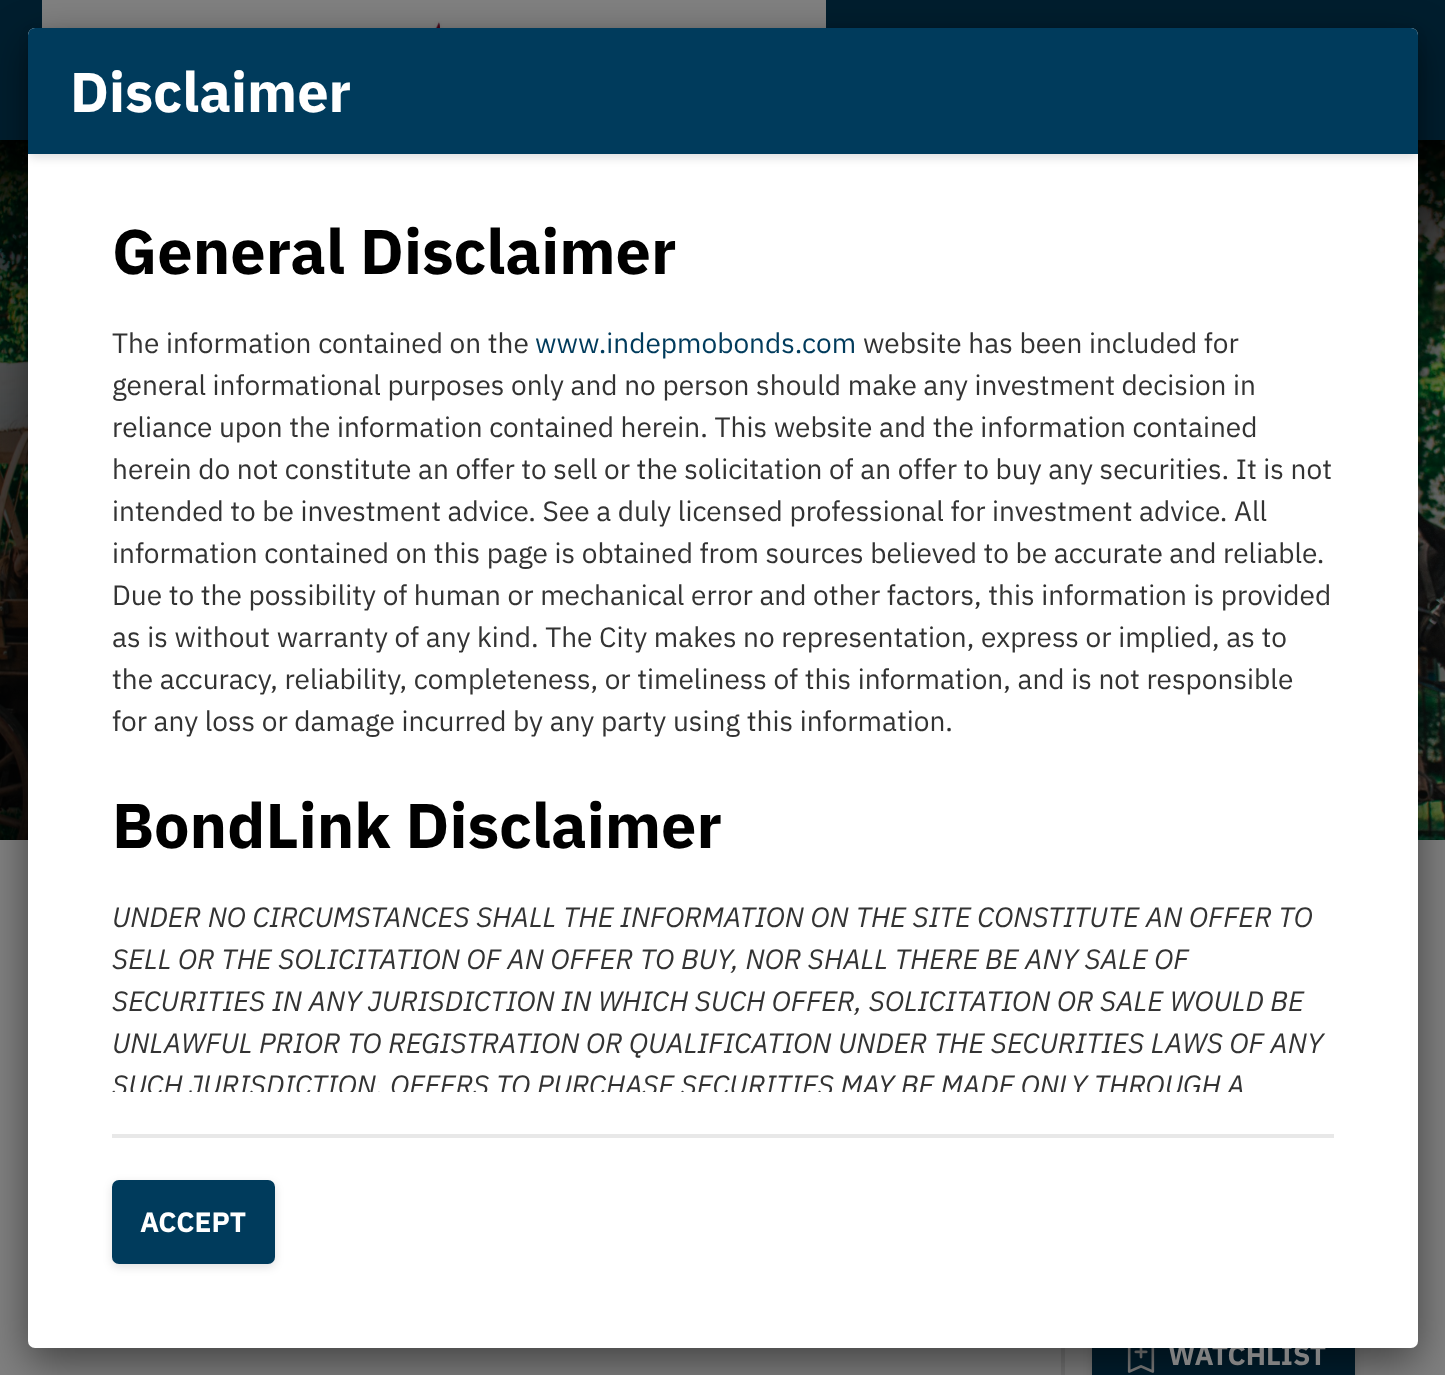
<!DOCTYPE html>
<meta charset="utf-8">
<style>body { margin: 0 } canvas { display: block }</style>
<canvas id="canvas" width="1445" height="1375"></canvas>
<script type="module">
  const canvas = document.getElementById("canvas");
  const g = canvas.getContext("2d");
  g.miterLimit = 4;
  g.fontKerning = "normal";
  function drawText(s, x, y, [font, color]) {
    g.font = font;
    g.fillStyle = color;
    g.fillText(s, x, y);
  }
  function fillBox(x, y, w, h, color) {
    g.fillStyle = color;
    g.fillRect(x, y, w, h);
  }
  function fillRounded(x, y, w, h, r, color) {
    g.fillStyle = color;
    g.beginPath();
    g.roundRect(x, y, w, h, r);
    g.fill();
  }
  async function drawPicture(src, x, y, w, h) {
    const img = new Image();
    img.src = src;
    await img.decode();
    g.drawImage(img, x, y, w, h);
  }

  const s1 = ["bold 28px IBM Plex Sans", "#808080"];
  const s2 = ["bold 56px IBM Plex Sans", "#FFFFFF"];
  const s3 = ["bold 63px IBM Plex Sans", "#000000"];
  const s4 = ["28px IBM Plex Sans", "#333333"];
  const s5 = ["28px IBM Plex Sans", "#003B5C"];
  const s6 = ["italic 28px IBM Plex Sans", "#333333"];
  const s7 = ["bold 28px IBM Plex Sans", "#FFFFFF"];

  fillBox(0, 0, 1445, 1375, "#808080");
  fillBox(0, 0, 1445, 140, "#001E2E");
  fillBox(42, 0, 784, 28, "#808080");
  await drawPicture("pic1.png", 316, 21, 231, 7);
  await drawPicture("pic2.png", 0, 140, 1445, 700);
  fillBox(1061, 1348, 4, 27, "#747474");
  g.fillStyle = "rgba(0, 0, 0, 0.12)";
  g.filter = "blur(5px)";
  g.beginPath();
  g.roundRect(1092, 1316, 263, 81, 7);
  g.fill();
  g.filter = "none";
  fillBox(1096, 1348, 255, 27, "#001E2E");
  g.strokeStyle = "#001E2E";
  g.lineWidth = 4;
  g.strokeRect(1094, 1315, 259, 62);
  await drawPicture("pic3.png", 1127, 1348, 28, 25);
  g.fillStyle = "rgba(0, 0, 0, 0.48)";
  g.filter = "blur(21px)";
  g.beginPath();
  g.roundRect(28, 42, 1390, 1320, 7);
  g.fill();
  g.filter = "none";
  drawText("WATCHLIST", 1168, 1365, s1);
  fillRounded(28, 28, 1390, 1320, 7, "#FFFFFF");
  g.fillStyle = "rgba(0, 0, 0, 0.12)";
  g.filter = "blur(5px)";
  g.beginPath();
  g.roundRect(28, 32, 1390, 126, 7);
  g.fill();
  g.filter = "none";
  g.fillStyle = "#003B5C";
  g.beginPath();
  g.roundRect(28, 28, 1390, 126, [7, 7, 0, 0]);
  g.fill();
  drawText("Disclaimer", 70, 112, s2);
  drawText("General Disclaimer", 112, 274, s3);
  drawText("The information contained on the", 112, 353, s4);
  drawText("www.indepmobonds.com", 535, 353, s5);
  drawText("website has been included for", 863, 353, s4);
  drawText("general informational purposes only and no person should make any investment decision in", 112, 395, s4);
  drawText("reliance upon the information contained herein. This website and the information contained", 112, 437, s4);
  drawText("herein do not constitute an offer to sell or the solicitation of an offer to buy any securities. It is not", 112, 479, s4);
  drawText("intended to be investment advice. See a duly licensed professional for investment advice. All", 112, 521, s4);
  drawText("information contained on this page is obtained from sources believed to be accurate and reliable.", 112, 563, s4);
  drawText("Due to the possibility of human or mechanical error and other factors, this information is provided", 112, 605, s4);
  drawText("as is without warranty of any kind. The City makes no representation, express or implied, as to", 112, 647, s4);
  drawText("the accuracy, reliability, completeness, or timeliness of this information, and is not responsible", 112, 689, s4);
  drawText("for any loss or damage incurred by any party using this information.", 112, 731, s4);
  drawText("BondLink Disclaimer", 112, 848, s3);
  drawText("UNDER NO CIRCUMSTANCES SHALL THE INFORMATION ON THE SITE CONSTITUTE AN OFFER TO", 112, 927, s6);
  drawText("SELL OR THE SOLICITATION OF AN OFFER TO BUY, NOR SHALL THERE BE ANY SALE OF", 112, 969, s6);
  drawText("SECURITIES IN ANY JURISDICTION IN WHICH SUCH OFFER, SOLICITATION OR SALE WOULD BE", 112, 1011, s6);
  drawText("UNLAWFUL PRIOR TO REGISTRATION OR QUALIFICATION UNDER THE SECURITIES LAWS OF ANY", 112, 1053, s6);
  g.save();
  g.beginPath();
  g.rect(112, 210, 1222, 882);
  g.clip();
  drawText("SUCH JURISDICTION. OFFERS TO PURCHASE SECURITIES MAY BE MADE ONLY THROUGH A", 112, 1095, s6);
  g.restore();
  fillBox(112, 1134, 1222, 4, "#E8E8E8");
  g.fillStyle = "rgba(0, 0, 0, 0.12)";
  g.filter = "blur(5px)";
  g.beginPath();
  g.roundRect(112, 1183, 163, 84, 7);
  g.fill();
  g.filter = "none";
  g.fillStyle = "#003B5C";
  g.beginPath();
  g.roundRect(114, 1182, 159, 80, 5);
  g.fill();
  g.strokeStyle = "#003B5C";
  g.stroke();
  drawText("ACCEPT", 140, 1232, s7);
</script>
